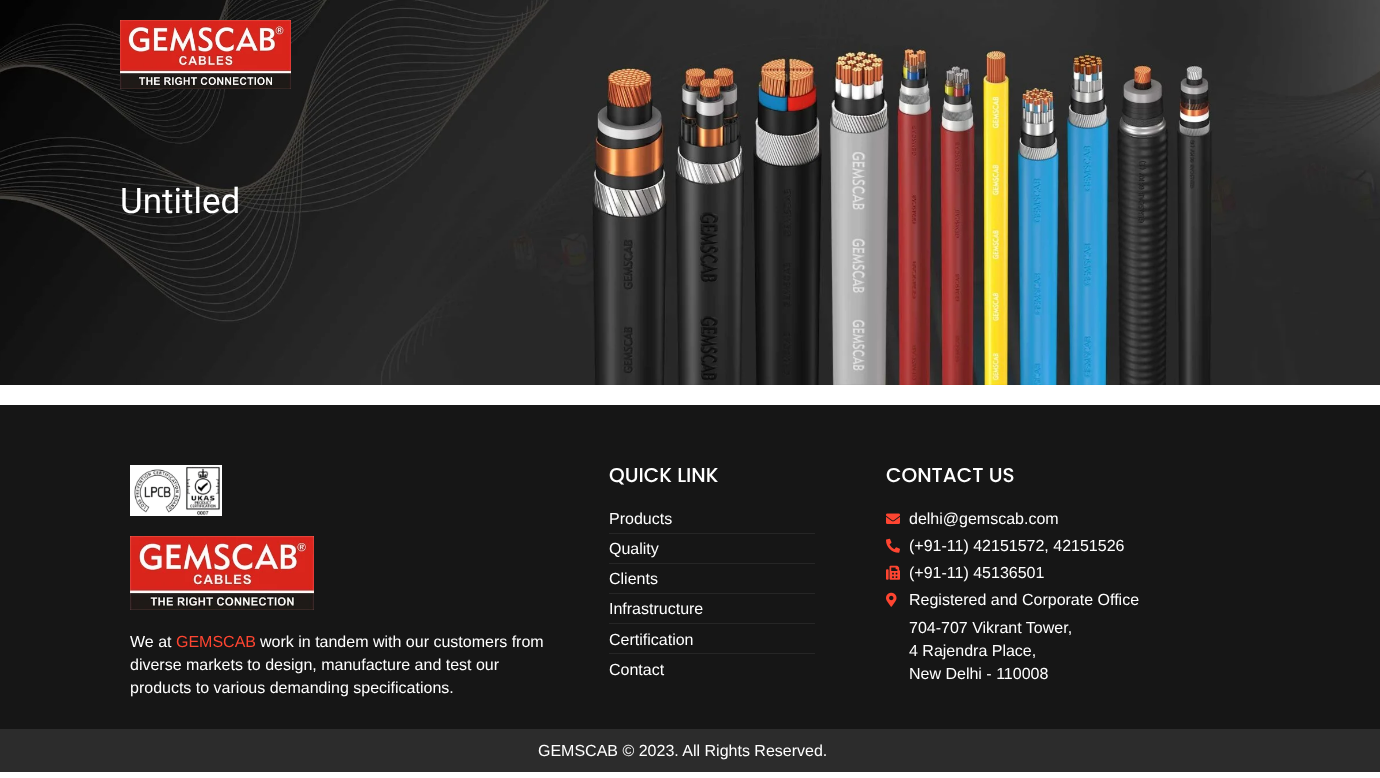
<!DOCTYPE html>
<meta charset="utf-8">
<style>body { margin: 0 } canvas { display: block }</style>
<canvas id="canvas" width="1380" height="778"></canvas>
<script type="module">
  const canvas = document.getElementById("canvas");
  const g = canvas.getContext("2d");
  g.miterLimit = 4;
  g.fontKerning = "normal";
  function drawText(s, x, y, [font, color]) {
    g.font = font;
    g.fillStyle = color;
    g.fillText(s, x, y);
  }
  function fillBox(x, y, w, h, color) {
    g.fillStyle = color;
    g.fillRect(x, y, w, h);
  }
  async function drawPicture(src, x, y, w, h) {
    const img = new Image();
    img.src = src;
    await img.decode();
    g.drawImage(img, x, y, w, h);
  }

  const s1 = ["35px Roboto", "#FFFFFF"];
  const s2 = ["16px Liberation Sans", "#FFFFFF"];
  const s3 = ["16px Liberation Sans", "#FE4531"];
  const s4 = ["500 20px Poppins", "#FFFFFF"];

  fillBox(0, 0, 1380, 778, "#FFFFFF");
  await drawPicture("pic1.png", 0, 0, 1380, 385);
  await drawPicture("pic2.png", 120, 20, 171, 69);
  drawText("Untitled", 120, 213, s1);
  fillBox(0, 405, 1380, 324, "#161616");
  await drawPicture("pic3.png", 130, 465, 92, 51);
  await drawPicture("pic4.png", 130, 536, 184, 74);
  drawText("We at", 130, 647, s2);
  drawText("GEMSCAB", 176, 647, s3);
  drawText("work in tandem with our customers from", 260, 647, s2);
  drawText("diverse markets to design, manufacture and test our", 130, 670, s2);
  drawText("products to various demanding specifications.", 130, 693, s2);
  drawText("QUICK LINK", 609, 482, s4);
  drawText("Products", 609, 524, s2);
  fillBox(609, 533, 206, 1, "#262626");
  drawText("Quality", 609, 554, s2);
  fillBox(609, 563, 206, 1, "#262626");
  drawText("Clients", 609, 584, s2);
  fillBox(609, 593, 206, 1, "#262626");
  drawText("Infrastructure", 609, 614, s2);
  fillBox(609, 623, 206, 1, "#262626");
  drawText("Certification", 609, 645, s2);
  fillBox(609, 653, 206, 1, "#262626");
  drawText("Contact", 609, 675, s2);
  drawText("CONTACT US", 886, 482, s4);
  await drawPicture("pic5.png", 886, 513, 14, 11);
  drawText("delhi@gemscab.com", 909, 524, s2);
  await drawPicture("pic6.png", 886, 538, 14, 15);
  drawText("(+91-11) 42151572, 42151526", 909, 551, s2);
  await drawPicture("pic7.png", 886, 565, 14, 15);
  drawText("(+91-11) 45136501", 909, 578, s2);
  await drawPicture("pic8.png", 886, 592, 11, 15);
  drawText("Registered and Corporate Office", 909, 605, s2);
  drawText("704-707 Vikrant Tower,", 909, 633, s2);
  drawText("4 Rajendra Place,", 909, 656, s2);
  drawText("New Delhi - 110008", 909, 679, s2);
  fillBox(0, 729, 1380, 43, "#2C2C2C");
  drawText("GEMSCAB © 2023. All Rights Reserved.", 538, 756, s2);
</script>
